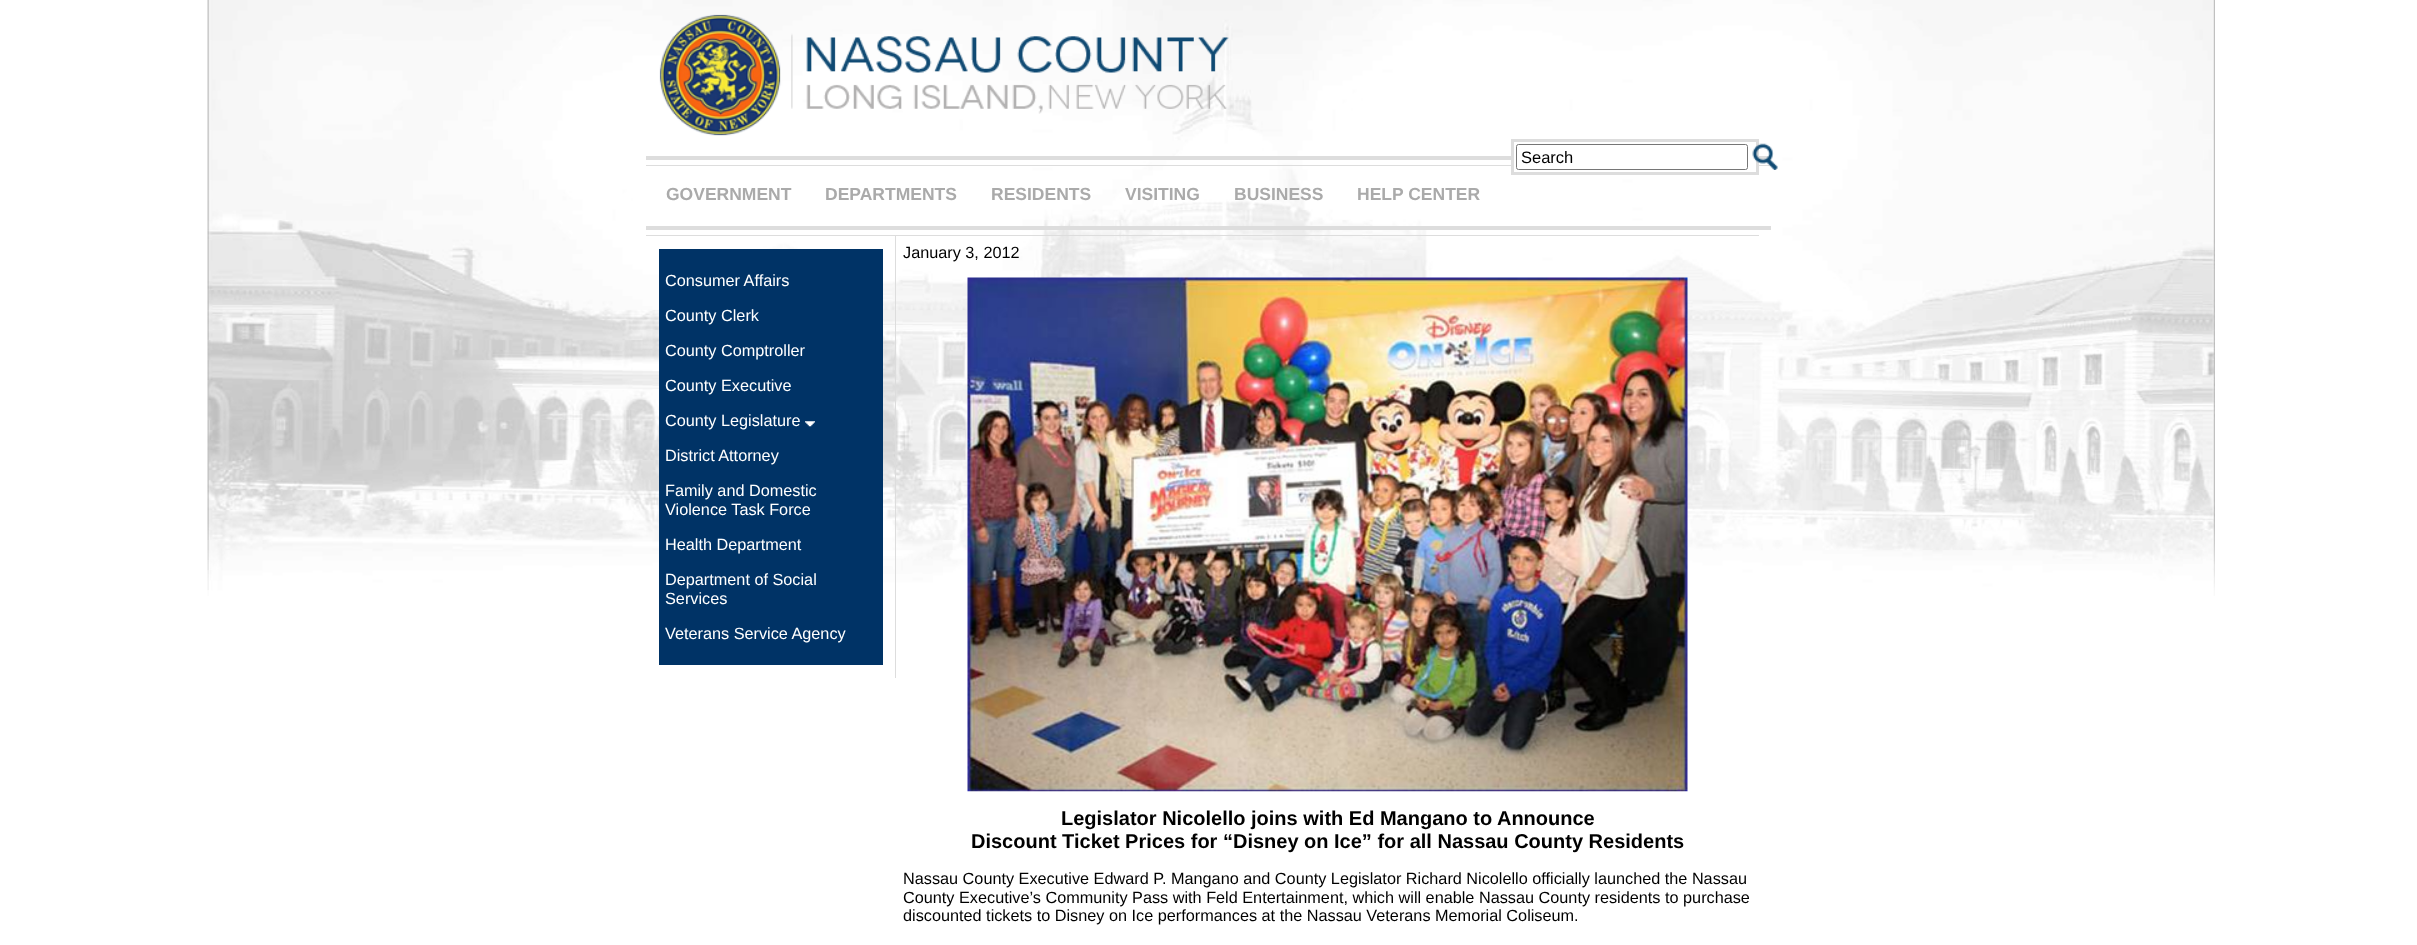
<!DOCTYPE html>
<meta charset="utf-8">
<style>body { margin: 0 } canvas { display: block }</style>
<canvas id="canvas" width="2417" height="945"></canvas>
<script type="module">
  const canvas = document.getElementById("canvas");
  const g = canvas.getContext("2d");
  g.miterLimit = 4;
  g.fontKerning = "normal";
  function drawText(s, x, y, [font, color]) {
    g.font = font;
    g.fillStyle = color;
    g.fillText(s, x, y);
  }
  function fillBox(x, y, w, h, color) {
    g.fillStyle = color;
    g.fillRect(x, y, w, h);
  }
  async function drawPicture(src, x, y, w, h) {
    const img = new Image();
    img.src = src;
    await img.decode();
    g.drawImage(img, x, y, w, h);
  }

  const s1 = ["16.5px Liberation Sans", "#000000"];
  const s2 = ["bold 17.5px Liberation Sans", "#AAAAAA"];
  const s3 = ["16.25px Liberation Sans", "#FFFFFF"];
  const s4 = ["16.25px Liberation Sans", "#000000"];
  const s5 = ["bold 20px Liberation Sans", "#000000"];

  fillBox(0, 0, 2417, 945, "#FFFFFF");
  await drawPicture("pic1.png", 207, 0, 2008, 596);
  fillBox(646, 156, 1125, 4, "#DDDDDD");
  await drawPicture("pic2.png", 659, 14, 570, 122);
  fillBox(646, 165, 1125, 1, "#DDDDDD");
  fillBox(646, 226, 1125, 4, "#DDDDDD");
  fillBox(1514, 156, 242, 10, "#FFFFFF");
  g.strokeStyle = "#DDDDDD";
  g.lineWidth = 3;
  g.strokeRect(1512.5, 140.5, 245, 33);
  g.beginPath();
  g.roundRect(1516.5, 144.5, 231, 25, 2);
  g.strokeStyle = "#767676";
  g.lineWidth = 1;
  g.stroke();
  drawText("Search", 1521, 163, s1);
  await drawPicture("pic3.png", 1752, 143, 26, 27);
  drawText("GOVERNMENT", 666, 200, s2);
  drawText("DEPARTMENTS", 825, 200, s2);
  drawText("RESIDENTS", 991, 200, s2);
  drawText("VISITING", 1125, 200, s2);
  drawText("BUSINESS", 1234, 200, s2);
  drawText("HELP CENTER", 1357, 200, s2);
  fillBox(646, 235, 1113, 1, "#DDDDDD");
  fillBox(895, 235, 1, 443, "#DDDDDD");
  fillBox(659, 249, 224, 416, "#003366");
  drawText("Consumer Affairs", 665, 286, s3);
  drawText("County Clerk", 665, 321, s3);
  drawText("County Comptroller", 665, 356, s3);
  drawText("County Executive", 665, 391, s3);
  drawText("County Legislature", 665, 426, s3);
  await drawPicture("pic4.png", 805, 421, 10, 6);
  drawText("District Attorney", 665, 461, s3);
  drawText("Family and Domestic", 665, 496, s3);
  drawText("Violence Task Force", 665, 515, s3);
  drawText("Health Department", 665, 550, s3);
  drawText("Department of Social", 665, 585, s3);
  drawText("Services", 665, 604, s3);
  drawText("Veterans Service Agency", 665, 639, s3);
  drawText("January 3, 2012", 903, 258, s4);
  await drawPicture("pic5.png", 967, 277, 721, 515);
  drawText("Legislator Nicolello joins with Ed Mangano to Announce", 1061, 825, s5);
  drawText("Discount Ticket Prices for “Disney on Ice” for all Nassau County Residents", 971, 848, s5);
  drawText("Nassau County Executive Edward P. Mangano and County Legislator Richard Nicolello officially launched the Nassau", 903, 884, s4);
  drawText("County Executive’s Community Pass with Feld Entertainment, which will enable Nassau County residents to purchase", 903, 903, s4);
  drawText("discounted tickets to Disney on Ice performances at the Nassau Veterans Memorial Coliseum.", 903, 921, s4);
</script>
